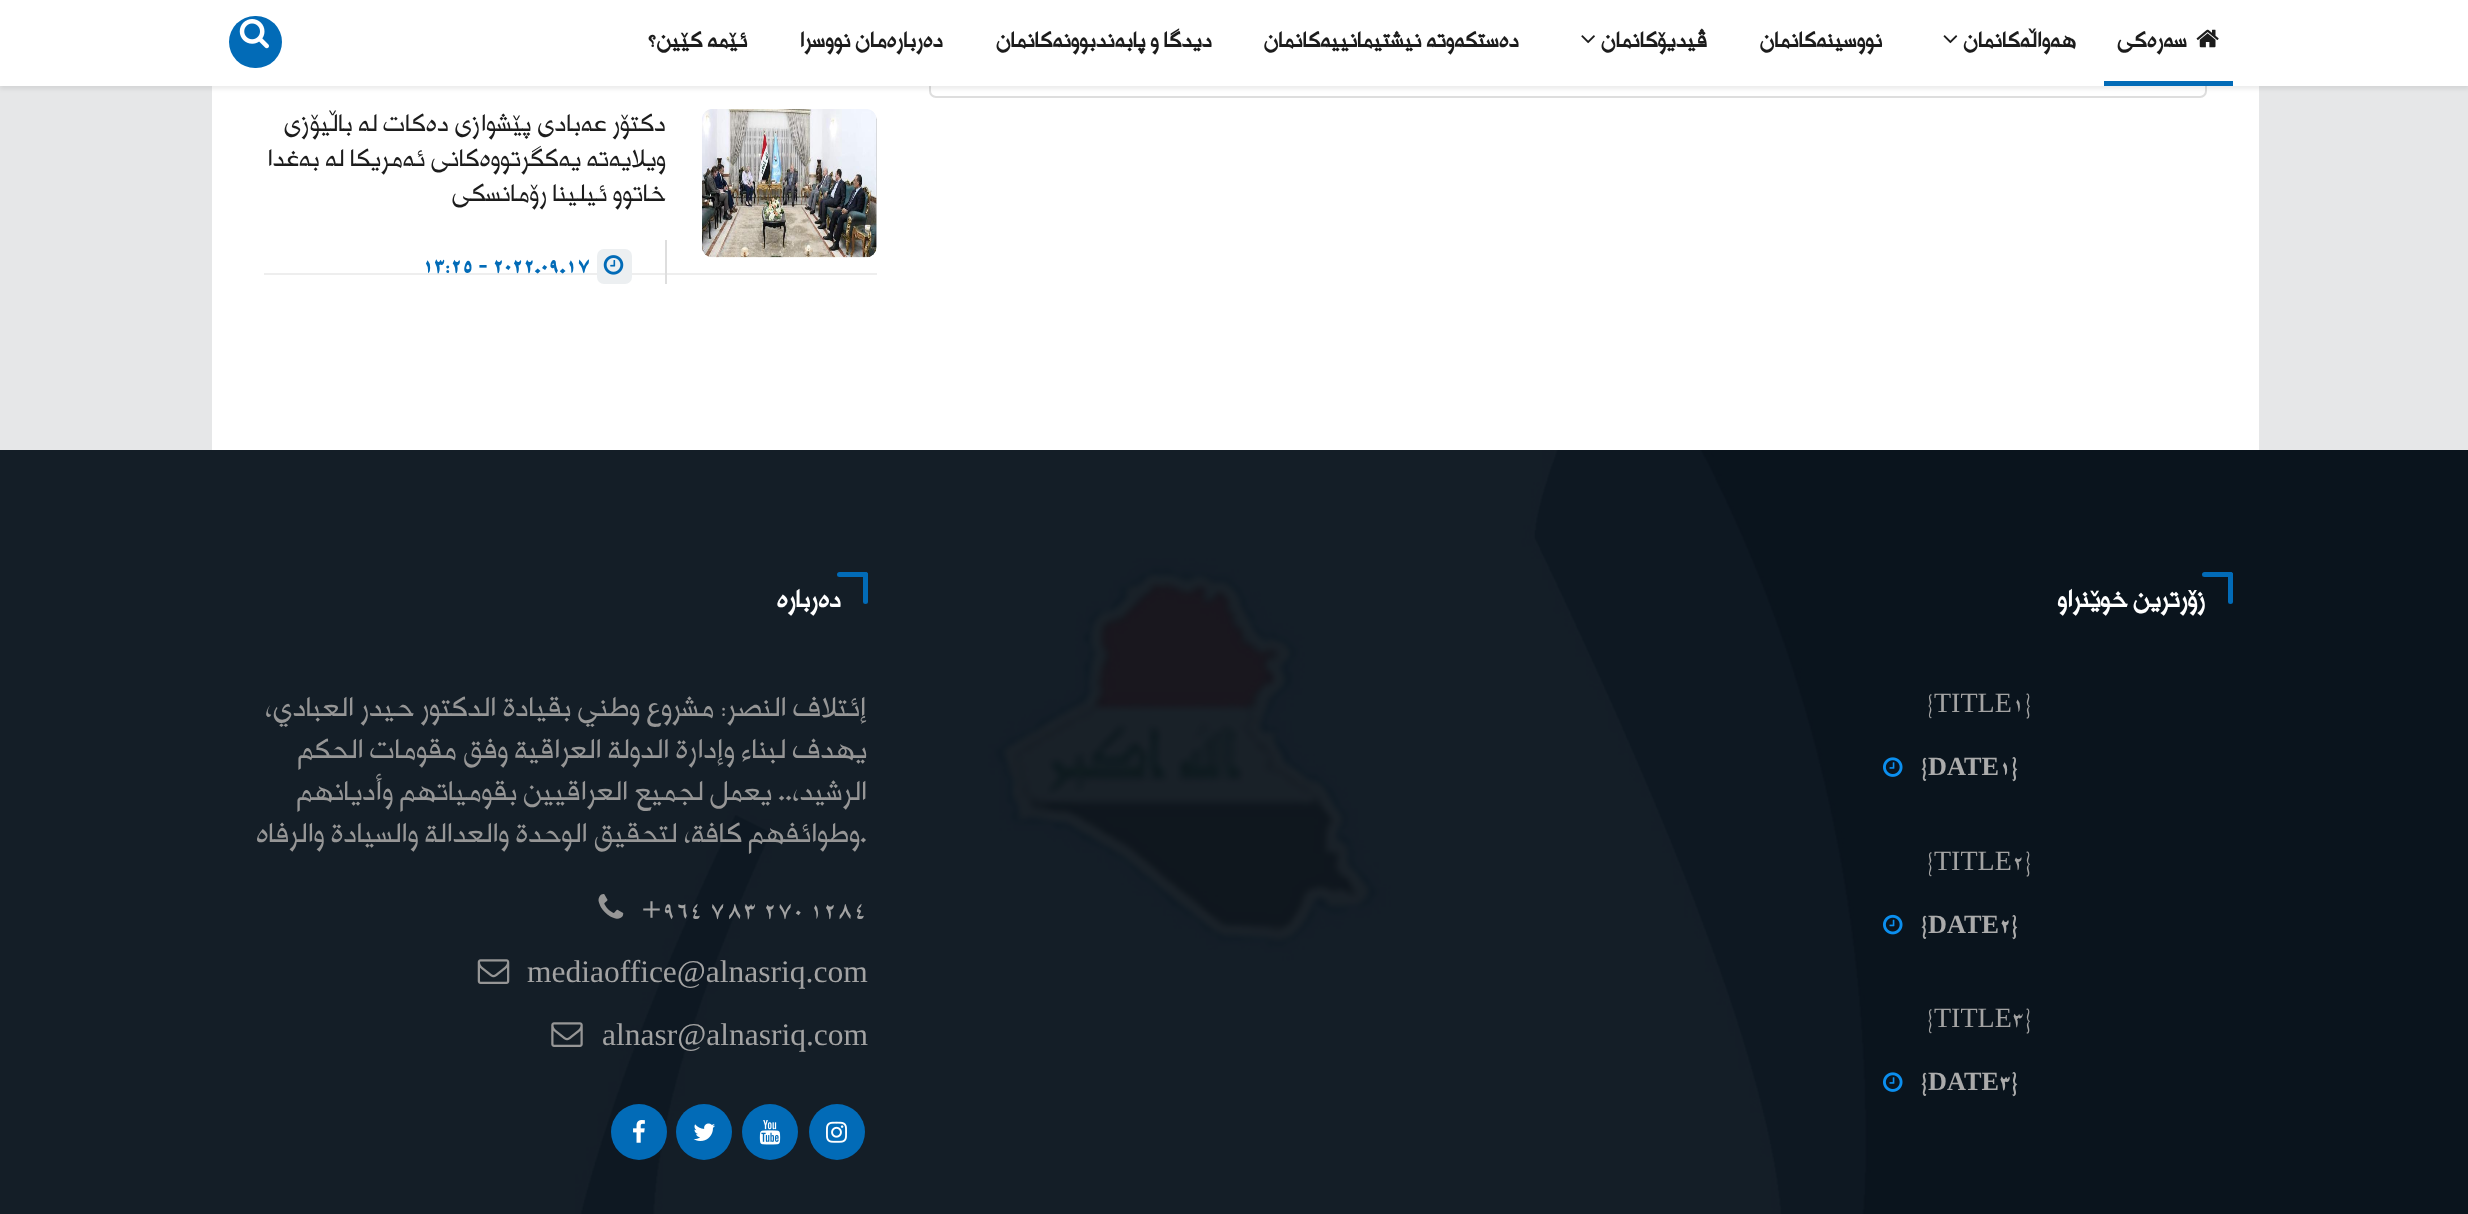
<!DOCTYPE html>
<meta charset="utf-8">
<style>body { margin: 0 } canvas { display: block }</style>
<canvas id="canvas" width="2468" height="1214"></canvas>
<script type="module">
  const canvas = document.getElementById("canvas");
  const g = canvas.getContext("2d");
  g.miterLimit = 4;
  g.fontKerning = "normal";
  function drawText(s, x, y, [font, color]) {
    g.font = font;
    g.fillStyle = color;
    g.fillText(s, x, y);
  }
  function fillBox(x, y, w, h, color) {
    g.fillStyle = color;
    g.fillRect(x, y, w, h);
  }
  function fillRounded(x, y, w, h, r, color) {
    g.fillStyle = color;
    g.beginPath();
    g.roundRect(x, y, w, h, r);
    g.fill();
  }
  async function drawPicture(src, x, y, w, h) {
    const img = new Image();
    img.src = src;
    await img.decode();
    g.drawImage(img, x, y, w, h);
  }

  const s1 = ["bold 24.5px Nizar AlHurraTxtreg", "#1C1C1C"];
  const s2 = ["300 28px Nizar AlHurraTxtreg", "#1C1C1C"];
  const s3 = ["bold 26.25px Nizar AlHurraTxtreg", "#026BB7"];
  const s4 = ["bold 28px Nizar AlHurraTxtreg", "#FFFFFF"];
  const s5 = ["300 28px Nizar AlHurraTxtreg", "#A3A3A3"];
  const s6 = ["28px Liberation Serif", "#A3A3A3"];
  const s7 = ["bold 26.25px Nizar AlHurraTxtreg", "#ABABAB"];
  const s8 = ["bold 26.25px Liberation Serif", "#ABABAB"];
  const s9 = ["300 31.5px Nizar AlHurraTxtreg", "#969696"];
  const s10 = ["300 31.5px Nizar AlHurraTxtreg", "#A3A3A3"];
  const s11 = ["31.5px Liberation Serif", "#A3A3A3"];

  fillBox(0, 0, 2468, 1214, "#E6E7E8");
  fillBox(212, 86, 2047, 364, "#FFFFFF");
  g.beginPath();
  g.roundRect(930, 61, 1276, 36, 6);
  g.strokeStyle = "#DEDEDE";
  g.lineWidth = 2;
  g.stroke();
  g.fillStyle = "rgba(0, 0, 0, 0.08)";
  g.filter = "blur(2px)";
  g.beginPath();
  g.rect(0, 4, 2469, 85);
  g.fill();
  g.filter = "none";
  fillBox(0, 0, 2468, 86, "#FFFFFF");
  await drawPicture("pic1.png", 2196, 29, 23, 19);
  g.direction = "rtl";
  drawText("سەرەکی", 2187, 47, s1);
  fillBox(2104, 81, 129, 5, "#026BB7");
  drawText("هەواڵەکانمان", 2076, 47, s1);
  await drawPicture("pic2.png", 1943, 35, 15, 9);
  drawText("نووسینەکانمان", 1882, 47, s1);
  drawText("ڤیدیۆکانمان", 1707, 47, s1);
  await drawPicture("pic3.png", 1581, 35, 14, 9);
  drawText("دەستکەوتە نیشتیمانییەکانمان", 1519, 47, s1);
  drawText("دیدگا و پابەندبوونەکانمان", 1212, 47, s1);
  drawText("دەربارەمان نووسرا", 943, 47, s1);
  drawText("ئێمە کێین؟", 747, 47, s1);
  fillRounded(229, 16, 53, 52, 26, "#026BB7");
  await drawPicture("pic4.png", 239, 19, 30, 30);
  fillBox(264, 273, 613, 2, "#EEEEEE");
  await drawPicture("pic5.png", 702, 109, 175, 149);
  drawText("دکتۆر عەبادی پێشوازی دەکات لە باڵیۆزی", 666, 131, s2);
  drawText("ویلایەتە یەکگرتووەکانی ئەمریکا لە بەغدا", 666, 166, s2);
  drawText("خاتوو ئیلینا رۆمانسکی", 666, 201, s2);
  fillBox(665, 240, 2, 44, "#DEDEDE");
  fillRounded(597, 249, 35, 35, 7, "#ECEFF1");
  await drawPicture("pic6.png", 603, 255, 21, 20);
  g.direction = "ltr";
  drawText("13:25 - 2022.09.17", 422, 273, s3);
  await drawPicture("pic7.png", 0, 450, 2468, 764);
  fillRounded(2228, 572, 5, 32, 2.5, "#026BB7");
  fillRounded(2202, 572, 31, 5, 2.5, "#026BB7");
  g.direction = "rtl";
  drawText("زۆرترین خوێنراو", 2206, 607, s4);
  g.direction = "ltr";
  drawText("1}", 2012, 712, s5);
  drawText("TITLE", 1934, 712, s6);
  drawText("{", 1927, 712, s5);
  drawText("1}", 1999, 775, s7);
  drawText("DATE", 1928, 775, s8);
  drawText("{", 1921, 775, s7);
  await drawPicture("pic8.png", 1883, 757, 20, 20);
  drawText("2}", 2012, 870, s5);
  drawText("TITLE", 1934, 870, s6);
  drawText("{", 1927, 870, s5);
  drawText("2}", 1999, 933, s7);
  drawText("DATE", 1928, 933, s8);
  drawText("{", 1921, 933, s7);
  await drawPicture("pic9.png", 1883, 914, 20, 21);
  drawText("3}", 2012, 1027, s5);
  drawText("TITLE", 1934, 1027, s6);
  drawText("{", 1927, 1027, s5);
  drawText("3}", 1999, 1090, s7);
  drawText("DATE", 1928, 1090, s8);
  drawText("{", 1921, 1090, s7);
  await drawPicture("pic8.png", 1883, 1072, 20, 20);
  fillRounded(863, 572, 5, 32, 2.5, "#026BB7");
  fillRounded(837, 572, 31, 5, 2.5, "#026BB7");
  g.direction = "rtl";
  drawText("دەربارە", 841, 607, s4);
  drawText("إئتلاف النصر: مشروع وطني بقيادة الدكتور حيدر العبادي،", 867, 716, s9);
  drawText("يهدف لبناء وإدارة الدولة العراقية وفق مقومات الحكم", 867, 758, s9);
  drawText("الرشيد،.. يعمل لجميع العراقيين بقومياتهم وأديانهم", 867, 800, s9);
  g.direction = "ltr";
  drawText(".", 860, 842, s9);
  g.direction = "rtl";
  drawText("وطوائفهم كافة، لتحقيق الوحدة والعدالة والسيادة والرفاه", 860, 842, s9);
  g.direction = "ltr";
  drawText("+964 783 270 1284", 641, 919, s10);
  await drawPicture("pic10.png", 598, 894, 26, 25);
  drawText("mediaoffice@alnasriq.com", 527, 982, s11);
  await drawPicture("pic11.png", 477, 959, 33, 25);
  drawText("alnasr@alnasriq.com", 602, 1045, s11);
  await drawPicture("pic12.png", 551, 1022, 32, 25);
  g.fillStyle = "#026BB7";
  g.beginPath();
  g.arc(837, 1132, 28, 0, Math.PI * 2);
  g.fill();
  await drawPicture("pic13.png", 826, 1121, 21, 22);
  g.beginPath();
  g.arc(770, 1132, 28, 0, Math.PI * 2);
  g.fill();
  await drawPicture("pic14.png", 759, 1120, 22, 25);
  g.beginPath();
  g.arc(704, 1132, 28, 0, Math.PI * 2);
  g.fill();
  await drawPicture("pic15.png", 693, 1123, 22, 18);
  g.beginPath();
  g.arc(639, 1132, 28, 0, Math.PI * 2);
  g.fill();
  await drawPicture("pic16.png", 633, 1120, 12, 23);
</script>
